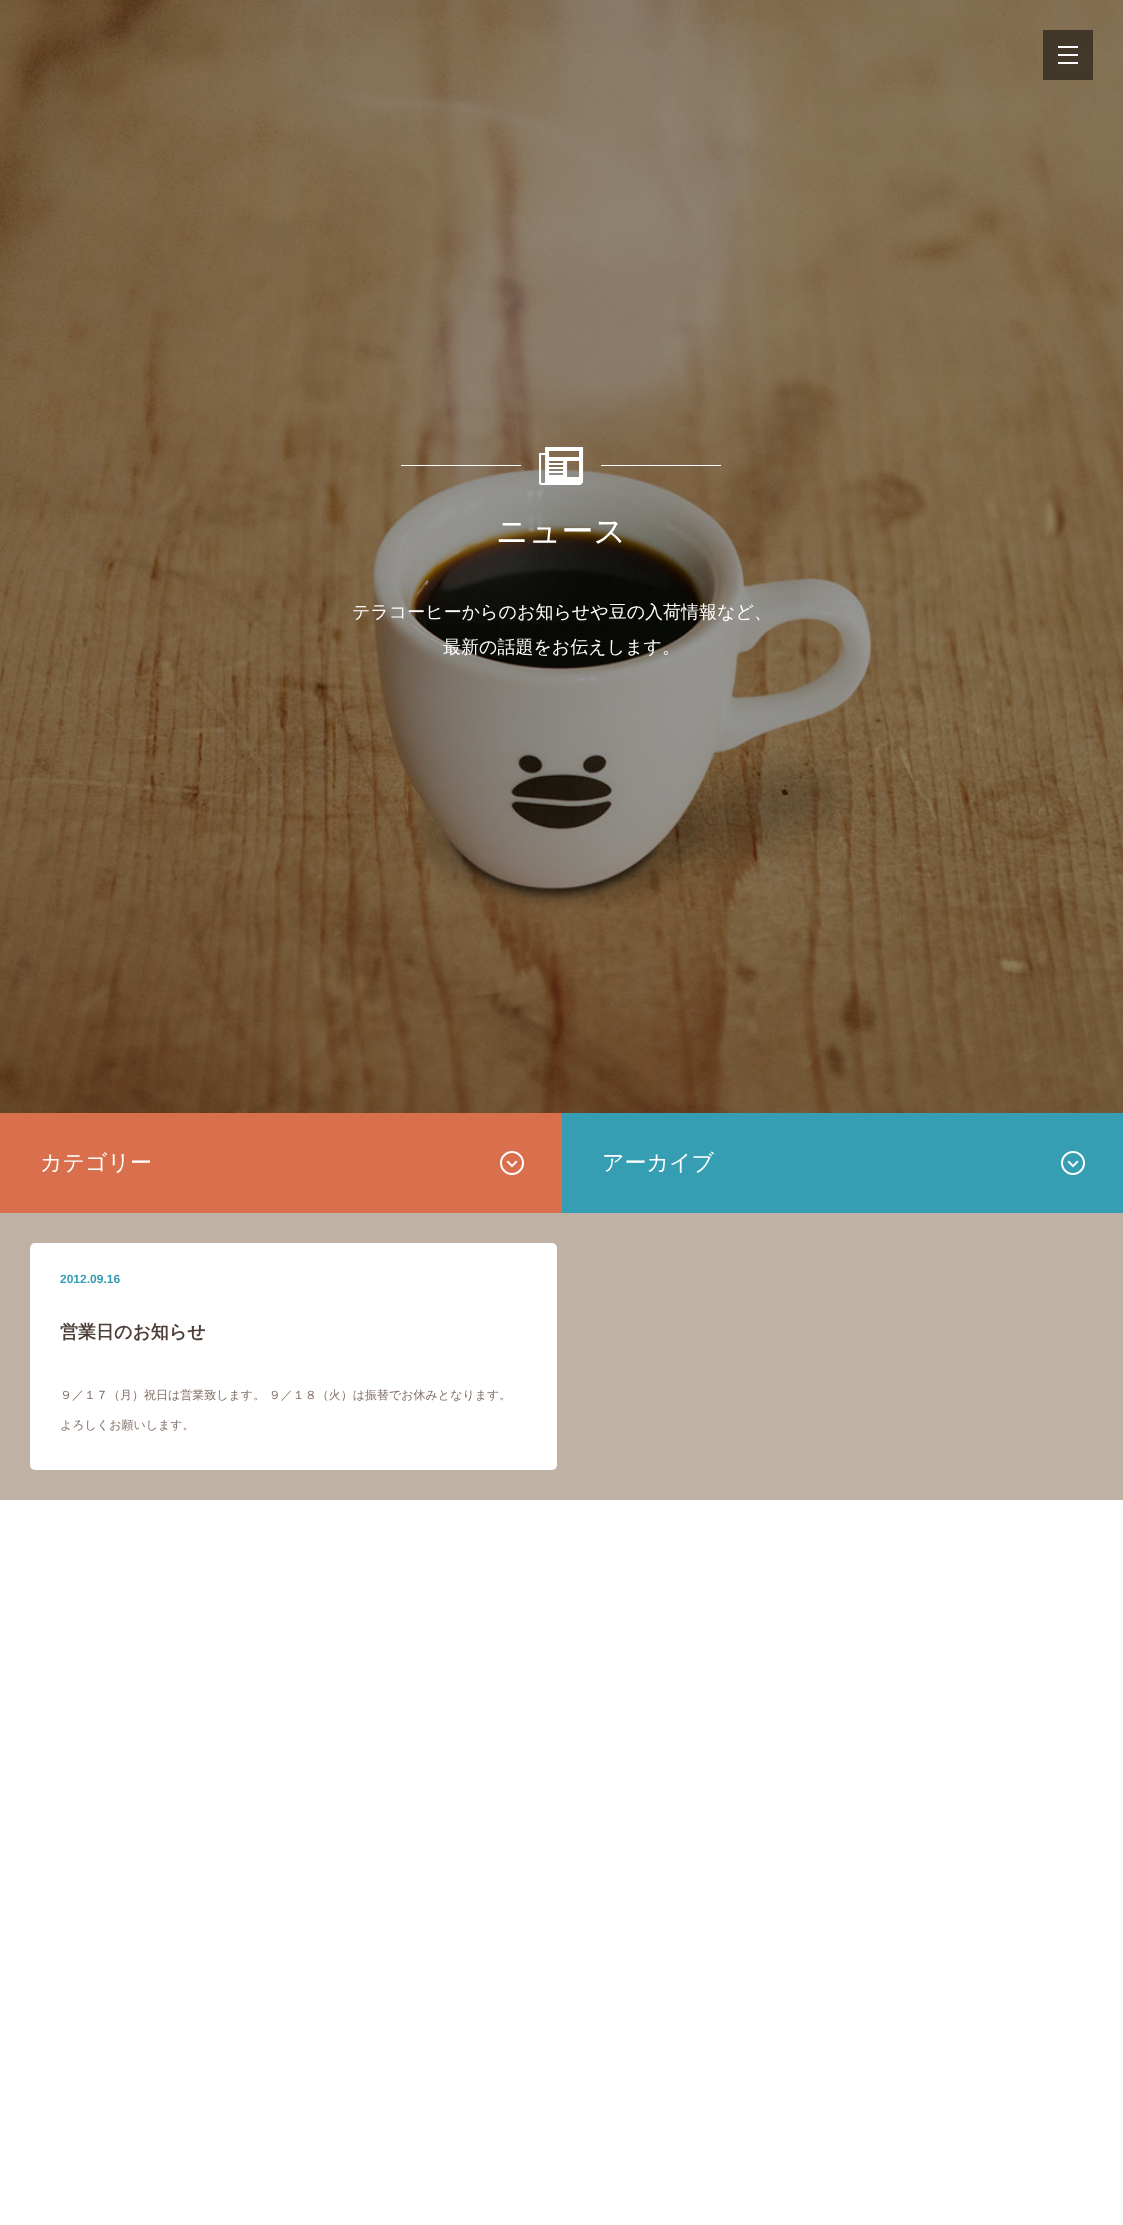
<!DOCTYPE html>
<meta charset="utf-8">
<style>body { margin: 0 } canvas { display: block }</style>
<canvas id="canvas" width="1123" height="2225"></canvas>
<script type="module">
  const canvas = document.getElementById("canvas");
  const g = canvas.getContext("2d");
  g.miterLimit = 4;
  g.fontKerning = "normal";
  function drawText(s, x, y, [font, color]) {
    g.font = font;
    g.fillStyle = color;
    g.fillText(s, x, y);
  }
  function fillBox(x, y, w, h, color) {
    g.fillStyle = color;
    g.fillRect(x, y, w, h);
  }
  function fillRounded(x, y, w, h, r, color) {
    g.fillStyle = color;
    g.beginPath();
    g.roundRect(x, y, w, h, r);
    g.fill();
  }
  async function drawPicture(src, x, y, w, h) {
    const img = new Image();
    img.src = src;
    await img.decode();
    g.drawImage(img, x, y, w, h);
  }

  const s1 = ["500 32px WenQuanYi Zen Hei", "#FFFFFF"];
  const s2 = ["500 18px WenQuanYi Zen Hei", "#FFFFFF"];
  const s3 = ["500 22px WenQuanYi Zen Hei", "#FFFFFF"];
  const s4 = ["bold 12px Liberation Sans", "#369EB3"];
  const s5 = ["bold 18px WenQuanYi Zen Hei", "#4C3D36"];
  const s6 = ["500 12px WenQuanYi Zen Hei", "#806E66"];

  fillBox(0, 0, 1123, 2225, "#FFFFFF");
  fillBox(0, 1213, 1123, 287, "#BFB1A3");
  await drawPicture("pic1.png", 0, 0, 1123, 1113);
  fillBox(1043, 30, 50, 50, "rgba(0, 0, 0, 0.5)");
  fillBox(1058, 46, 20, 2, "#FFFFFF");
  fillBox(1058, 54, 20, 2, "#FFFFFF");
  fillBox(1058, 62, 20, 2, "#FFFFFF");
  await drawPicture("pic2.png", 401, 447, 321, 38);
  drawText("ニュース", 496, 542, s1);
  drawText("テラコーヒーからのお知らせや豆の入荷情報など、", 352, 618, s2);
  drawText("最新の話題をお伝えします。", 443, 653, s2);
  fillBox(0, 1113, 562, 100, "#D96F4C");
  await drawPicture("pic3.png", 500, 1151, 24, 24);
  drawText("カテゴリー", 40, 1170, s3);
  fillBox(562, 1113, 561, 100, "#369EB3");
  await drawPicture("pic4.png", 1061, 1151, 24, 24);
  drawText("アーカイブ", 602, 1170, s3);
  fillRounded(30, 1243, 527, 227, 5, "#FFFFFF");
  drawText("2012.09.16", 60, 1283, s4);
  drawText("営業日のお知らせ", 60, 1338, s5);
  drawText("９／１７（月）祝日は営業致します。 ９／１８（火）は振替でお休みとなります。", 60, 1399, s6);
  drawText("よろしくお願いします。", 60, 1429, s6);
</script>
